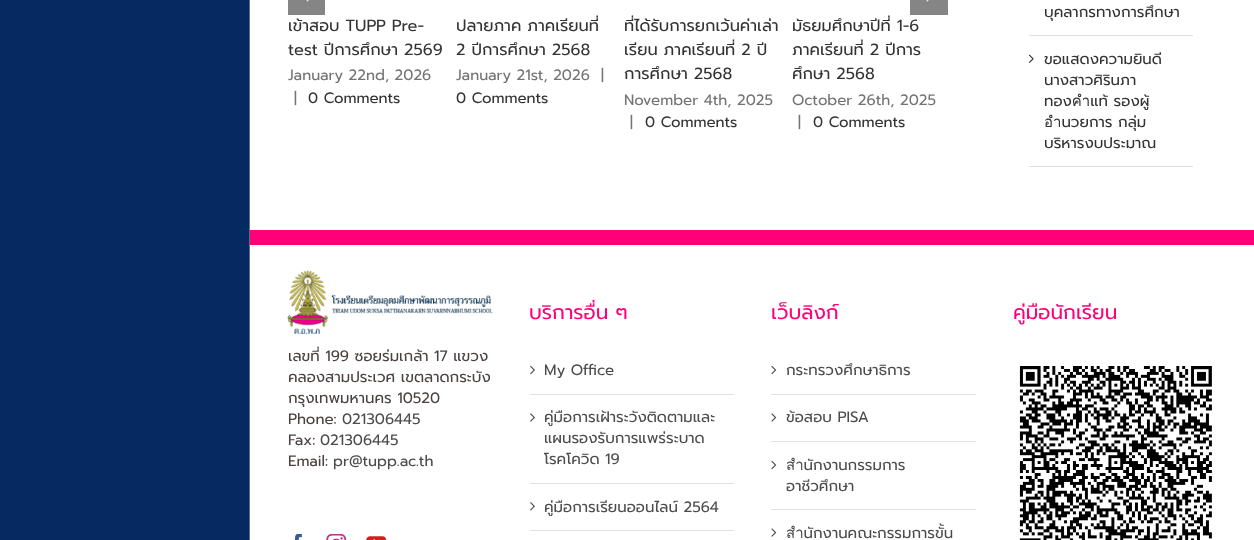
<!DOCTYPE html>
<meta charset="utf-8">
<style>body { margin: 0 } canvas { display: block }</style>
<canvas id="canvas" width="1254" height="540"></canvas>
<script type="module">
  const canvas = document.getElementById("canvas");
  const g = canvas.getContext("2d");
  g.miterLimit = 4;
  g.fontKerning = "normal";
  function drawText(s, x, y, [font, color]) {
    g.font = font;
    g.fillStyle = color;
    g.fillText(s, x, y);
  }
  function fillBox(x, y, w, h, color) {
    g.fillStyle = color;
    g.fillRect(x, y, w, h);
  }
  async function drawPicture(src, x, y, w, h) {
    const img = new Image();
    img.src = src;
    await img.decode();
    g.drawImage(img, x, y, w, h);
  }

  const s1 = ["16.25px Prompt", "#333333"];
  const s2 = ["15px Prompt", "#747474"];
  const s3 = ["15px Prompt", "#333333"];
  const s4 = ["20px Prompt", "#FF0079"];
  const s5 = ["15px Prompt", "#4C4C4C"];
  const s6 = ["15px Prompt", "#4C4141"];

  fillBox(0, 0, 1254, 540, "#FFFFFF");
  fillBox(0, 0, 249, 540, "#072961");
  fillBox(249, 0, 1, 540, "#566D94");
  fillBox(288, 0, 37, 15, "rgba(0, 0, 0, 0.48)");
  await drawPicture("pic1.png", 306, 0, 3, 2);
  fillBox(910, 0, 38, 15, "rgba(0, 0, 0, 0.48)");
  await drawPicture("pic2.png", 926, 0, 3, 2);
  g.save();
  g.beginPath();
  g.rect(288, 0, 660, 144);
  g.clip();
  drawText("เข้าสอบ TUPP Pre-", 288, 31, s1);
  g.restore();
  drawText("test ปีการศึกษา 2569", 288, 55, s1);
  drawText("January 22nd, 2026", 288, 80, s2);
  drawText("|", 294, 103, s2);
  drawText("0 Comments", 308, 103, s3);
  drawText("ปลายภาค ภาคเรียนที่", 456, 31, s1);
  drawText("2 ปีการศึกษา 2568", 456, 55, s1);
  drawText("January 21st, 2026", 456, 80, s2);
  drawText("|", 601, 80, s2);
  drawText("0 Comments", 456, 103, s3);
  drawText("ที่ได้รับการยกเว้นค่าเล่า", 624, 31, s1);
  drawText("เรียน ภาคเรียนที่ 2 ปี", 624, 55, s1);
  drawText("การศึกษา 2568", 624, 79, s1);
  drawText("November 4th, 2025", 624, 105, s2);
  drawText("|", 630, 127, s2);
  drawText("0 Comments", 645, 127, s3);
  drawText("มัธยมศึกษาปีที่ 1-6", 792, 31, s1);
  drawText("ภาคเรียนที่ 2 ปีการ", 792, 55, s1);
  drawText("ศึกษา 2568", 792, 79, s1);
  drawText("October 26th, 2025", 792, 105, s2);
  drawText("|", 798, 127, s2);
  drawText("0 Comments", 813, 127, s3);
  fillBox(1029, 35, 164, 1, "#E0DEDE");
  drawText("บุคลากรทางการศึกษา", 1044, 17, s3);
  fillBox(1029, 166, 164, 1, "#E0DEDE");
  await drawPicture("pic3.png", 1028, 54, 6, 9);
  drawText("ขอแสดงความยินดี", 1044, 64, s3);
  drawText("นางสาวศิรินภา", 1044, 85, s3);
  drawText("ทองคำแท้ รองผู้", 1044, 106, s3);
  drawText("อำนวยการ กลุ่ม", 1044, 127, s3);
  drawText("บริหารงบประมาณ", 1044, 148, s3);
  fillBox(250, 230, 1004, 15, "#FF0078");
  drawText("บริการอื่น ๆ", 529, 319, s4);
  fillBox(530, 394, 204, 1, "#E5E0E0");
  await drawPicture("pic4.png", 530, 365, 5, 10);
  drawText("My Office", 544, 375, s5);
  fillBox(530, 483, 204, 1, "#E5E0E0");
  await drawPicture("pic5.png", 530, 413, 5, 9);
  drawText("คู่มือการเฝ้าระวังติดตามและ", 544, 422, s5);
  drawText("แผนรองรับการแพร่ระบาด", 544, 443, s5);
  drawText("โรคโควิด 19", 544, 464, s5);
  fillBox(530, 530, 204, 1, "#E5E0E0");
  await drawPicture("pic6.png", 530, 502, 5, 9);
  drawText("คู่มือการเรียนออนไลน์ 2564", 544, 512, s5);
  drawText("เว็บลิงก์", 771, 319, s4);
  fillBox(771, 394, 205, 1, "#E5E0E0");
  await drawPicture("pic7.png", 771, 365, 6, 10);
  drawText("กระทรวงศึกษาธิการ", 786, 375, s5);
  fillBox(771, 441, 205, 1, "#E5E0E0");
  await drawPicture("pic8.png", 771, 413, 6, 9);
  drawText("ข้อสอบ PISA", 786, 422, s5);
  fillBox(771, 509, 205, 1, "#E5E0E0");
  await drawPicture("pic7.png", 771, 460, 6, 10);
  drawText("สำนักงานกรรมการ", 786, 470, s5);
  drawText("อาชีวศึกษา", 786, 491, s5);
  await drawPicture("pic8.png", 771, 528, 6, 9);
  drawText("สำนักงานคณะกรรมการขั้น", 786, 538, s5);
  drawText("คู่มือนักเรียน", 1013, 319, s4);
  await drawPicture("pic9.png", 1019, 366, 193, 174);
  await drawPicture("pic10.png", 287, 270, 206, 64);
  drawText("เลขที่ 199 ซอยร่มเกล้า 17 แขวง", 288, 361, s6);
  drawText("คลองสามประเวศ เขตลาดกระบัง", 288, 382, s6);
  drawText("กรุงเทพมหานคร 10520", 288, 403, s6);
  drawText("Phone:", 288, 424, s6);
  drawText("021306445", 342, 424, s5);
  drawText("Fax:", 288, 445, s6);
  drawText("021306445", 320, 445, s5);
  drawText("Email:", 288, 466, s6);
  drawText("pr@tupp.ac.th", 333, 466, s5);
  await drawPicture("pic11.png", 295, 534, 7, 6);
  await drawPicture("pic12.png", 326, 534, 21, 6);
  await drawPicture("pic13.png", 366, 536, 21, 4);
</script>
